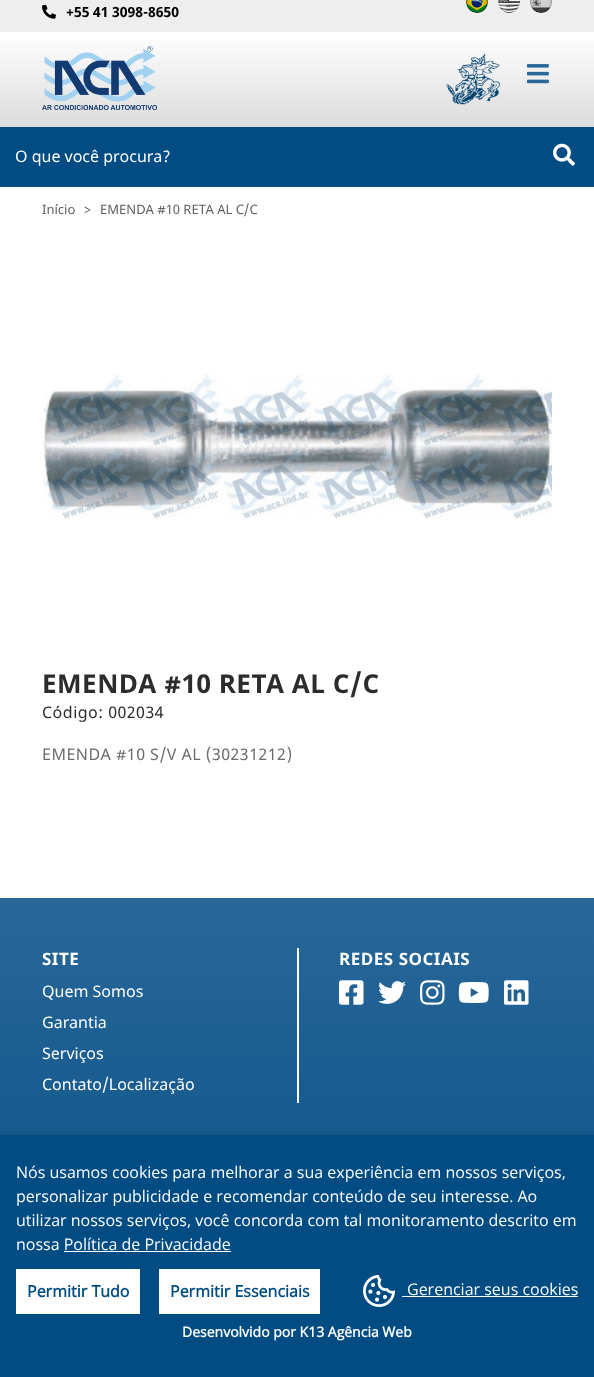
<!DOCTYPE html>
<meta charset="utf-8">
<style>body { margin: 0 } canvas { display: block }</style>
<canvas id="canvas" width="594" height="1377"></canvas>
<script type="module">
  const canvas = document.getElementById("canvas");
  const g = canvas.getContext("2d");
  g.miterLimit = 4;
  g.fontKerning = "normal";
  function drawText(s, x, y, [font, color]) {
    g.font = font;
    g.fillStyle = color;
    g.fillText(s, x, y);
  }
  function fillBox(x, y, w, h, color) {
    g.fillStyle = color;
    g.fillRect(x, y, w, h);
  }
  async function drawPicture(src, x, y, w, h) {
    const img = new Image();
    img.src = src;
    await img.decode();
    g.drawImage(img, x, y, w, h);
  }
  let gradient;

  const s1 = ["bold 14px Noto Sans", "#000000"];
  const s2 = ["16px Noto Sans", "#FFFFFF"];
  const s3 = ["13px Noto Sans", "#5E5E5E"];
  const s4 = ["bold 26px Noto Sans", "#2C2C2C"];
  const s5 = ["16px Noto Sans", "#2C2C2C"];
  const s6 = ["16px Noto Sans", "#6B6B6B"];
  const s7 = ["bold 17px Noto Sans", "#FFFFFF"];
  const s8 = ["16px Open Sans", "#FFFFFF"];
  const s9 = ["bold 16px Open Sans", "#024C84"];
  const s10 = ["bold 14px Open Sans", "#FFFFFF"];

  fillBox(0, 0, 594, 1377, "#FFFFFF");
  fillBox(0, 0, 594, 32, "#EEEEEE");
  await drawPicture("pic1.png", 42, 4, 14, 15);
  drawText("+55 41 3098-8650", 66, 17, s1);
  await drawPicture("pic2.png", 466, 0, 22, 13);
  await drawPicture("pic3.png", 498, 0, 22, 13);
  await drawPicture("pic4.png", 530, 0, 22, 13);
  gradient = g.createLinearGradient(297, 32, 297, 127);
  gradient.addColorStop(0, "#FFFFFF");
  gradient.addColorStop(1, "#DCDCDC");
  g.fillStyle = gradient;
  g.fillRect(0, 39, 594, 88);
  await drawPicture("pic5.png", 42, 46, 115, 64);
  await drawPicture("pic6.png", 446, 54, 54, 51);
  await drawPicture("pic7.png", 527, 64, 22, 20);
  fillBox(0, 127, 594, 60, "#024C84");
  drawText("O que você procura?", 15, 162, s2);
  await drawPicture("pic8.png", 553, 143, 22, 23);
  drawText("Início", 42, 214, s3);
  drawText(">", 84, 214, s3);
  drawText("EMENDA #10 RETA AL C/C", 100, 214, s3);
  await drawPicture("pic9.png", 42, 374, 510, 146);
  g.letterSpacing = "0.5px";
  drawText("EMENDA #10 RETA AL C/C", 42, 693, s4);
  drawText("Código: 002034", 42, 718, s5);
  drawText("EMENDA #10 S/V AL (30231212)", 42, 760, s6);
  gradient = g.createLinearGradient(297, 898, 297, 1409);
  gradient.addColorStop(0, "#296798");
  gradient.addColorStop(1, "#014B84");
  g.fillStyle = gradient;
  g.fillRect(0, 898, 594, 237);
  drawText("SITE", 42, 965, s7);
  g.letterSpacing = "0px";
  drawText("Quem Somos", 42, 997, s2);
  drawText("Garantia", 42, 1028, s2);
  drawText("Serviços", 42, 1059, s2);
  drawText("Contato/Localização", 42, 1090, s2);
  fillBox(297, 948, 2, 155, "#FFFFFF");
  g.letterSpacing = "0.5px";
  drawText("REDES SOCIAIS", 339, 965, s7);
  await drawPicture("pic10.png", 339, 980, 25, 25);
  await drawPicture("pic11.png", 378, 981, 28, 23);
  await drawPicture("pic12.png", 420, 980, 25, 25);
  await drawPicture("pic13.png", 458, 982, 31, 21);
  await drawPicture("pic14.png", 504, 980, 25, 25);
  g.fillStyle = "rgba(0, 0, 0, 0.16)";
  g.filter = "blur(3px)";
  g.beginPath();
  g.rect(0, 1135, 594, 242);
  g.fill();
  g.filter = "none";
  fillBox(0, 1135, 594, 242, "#024C84");
  g.letterSpacing = "0px";
  drawText("Nós usamos cookies para melhorar a sua experiência em nossos serviços,", 16, 1178, s8);
  drawText("personalizar publicidade e recomendar conteúdo de seu interesse. Ao", 16, 1202, s8);
  drawText("utilizar nossos serviços, você concorda com tal monitoramento descrito em", 16, 1226, s8);
  drawText("nossa Política de Privacidade", 16, 1250, s8);
  fillBox(64, 1251, 167, 1, "#FFFFFF");
  fillBox(16, 1269, 124, 45, "#FFFFFF");
  drawText("Permitir Tudo", 27, 1297, s9);
  fillBox(159, 1269, 161, 45, "#FFFFFF");
  drawText("Permitir Essenciais", 170, 1297, s9);
  await drawPicture("pic15.png", 363, 1275, 32, 32);
  drawText("Gerenciar seus cookies", 407, 1295, s8);
  fillBox(402, 1296, 176, 1, "#FFFFFF");
  drawText("Desenvolvido por K13 Agência Web", 182, 1337, s10);
</script>
